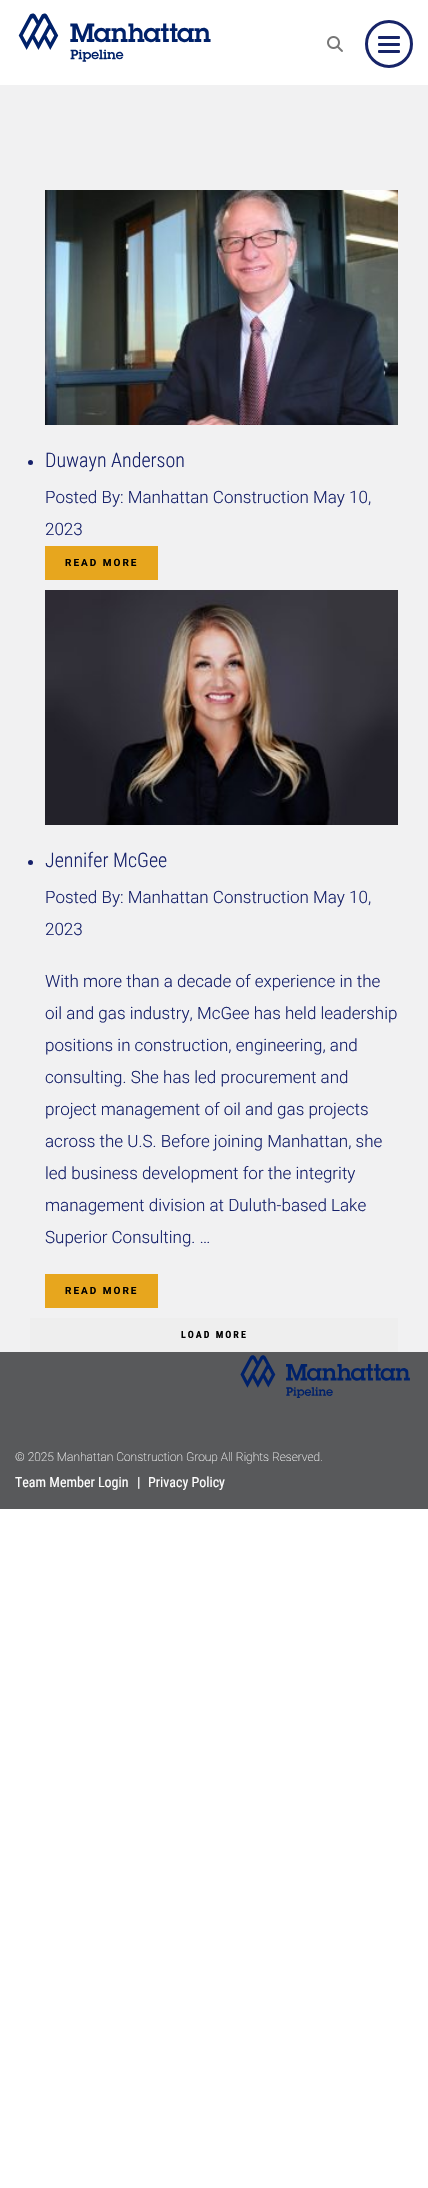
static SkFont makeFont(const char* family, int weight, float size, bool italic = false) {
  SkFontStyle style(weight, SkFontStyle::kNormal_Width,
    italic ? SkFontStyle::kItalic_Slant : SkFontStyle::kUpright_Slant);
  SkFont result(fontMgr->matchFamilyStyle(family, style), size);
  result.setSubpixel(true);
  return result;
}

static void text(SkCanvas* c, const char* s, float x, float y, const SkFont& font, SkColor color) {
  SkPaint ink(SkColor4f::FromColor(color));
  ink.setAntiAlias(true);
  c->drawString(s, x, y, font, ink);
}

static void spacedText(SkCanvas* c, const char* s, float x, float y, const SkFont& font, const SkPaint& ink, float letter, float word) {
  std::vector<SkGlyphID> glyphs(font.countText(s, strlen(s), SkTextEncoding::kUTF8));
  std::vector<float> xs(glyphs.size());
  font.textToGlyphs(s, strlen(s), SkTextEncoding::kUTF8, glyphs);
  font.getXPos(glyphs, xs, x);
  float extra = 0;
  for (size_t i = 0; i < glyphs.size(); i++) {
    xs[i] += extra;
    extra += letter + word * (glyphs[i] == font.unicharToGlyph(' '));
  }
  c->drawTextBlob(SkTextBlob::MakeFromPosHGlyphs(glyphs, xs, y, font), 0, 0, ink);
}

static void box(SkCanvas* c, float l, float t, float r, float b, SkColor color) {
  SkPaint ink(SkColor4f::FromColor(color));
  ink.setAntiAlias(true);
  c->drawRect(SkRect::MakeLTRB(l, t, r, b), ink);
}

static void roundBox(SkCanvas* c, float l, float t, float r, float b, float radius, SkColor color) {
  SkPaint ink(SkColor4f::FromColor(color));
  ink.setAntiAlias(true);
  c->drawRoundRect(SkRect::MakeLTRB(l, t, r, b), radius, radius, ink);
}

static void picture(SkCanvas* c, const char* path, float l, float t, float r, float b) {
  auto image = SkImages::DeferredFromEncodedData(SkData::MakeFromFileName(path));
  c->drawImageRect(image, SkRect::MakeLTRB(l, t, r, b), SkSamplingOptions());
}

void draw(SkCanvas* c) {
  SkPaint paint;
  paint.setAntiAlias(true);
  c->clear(0xffffffff);
  picture(c, "img_01.png", 18, 13, 211, 62);
  picture(c, "img_02.png", 327, 36, 343, 52);
  paint.setStyle(SkPaint::kStroke_Style);
  paint.setStrokeWidth(3);
  paint.setColor(0xff172468);
  c->drawCircle(389, 44, 22.5f, paint);
  roundBox(c, 378, 36, 400, 39, 1, 0xff172468);
  roundBox(c, 378, 43, 400, 46, 1, 0xff172468);
  roundBox(c, 378, 50, 400, 53, 1, 0xff172468);
  box(c, 0, 85, 428, 1352, 0xfff1f1f2);
  picture(c, "img_03.png", 45, 190, 398, 425);
  paint.setStyle(SkPaint::kFill_Style);
  paint.setColor(0xff16216a);
  c->drawCircle(30.5f, 462.5f, 2.5f, paint);
  SkFont face1 = makeFont("Roboto Condensed", 300, 20);
  text(c, "Duwayn Anderson", 45, 467, face1, 0xff16216a);
  SkFont face2 = makeFont("Roboto", 300, 17);
  text(c, "Posted By: Manhattan Construction May 10,", 45, 503, face2, 0xff16216a);
  text(c, "2023", 45, 535, face2, 0xff16216a);
  box(c, 45, 546, 158, 580, 0xffe7a61e);
  SkFont face3 = makeFont("Roboto", 700, 10);
  paint.setColor(0xff000000);
  spacedText(c, "READ MORE", 65, 566, face3, paint, 2, 0);
  picture(c, "img_04.png", 45, 590, 398, 825);
  paint.setColor(0xff16216a);
  c->drawCircle(30.5f, 862.5f, 2.5f, paint);
  text(c, "Jennifer McGee", 45, 867, face1, 0xff16216a);
  text(c, "Posted By: Manhattan Construction May 10,", 45, 903, face2, 0xff16216a);
  text(c, "2023", 45, 935, face2, 0xff16216a);
  text(c, "With more than a decade of experience in the", 45, 987, face2, 0xff16216a);
  text(c, "oil and gas industry, McGee has held leadership", 45, 1019, face2, 0xff16216a);
  text(c, "positions in construction, engineering, and", 45, 1051, face2, 0xff16216a);
  text(c, "consulting. She has led procurement and", 45, 1083, face2, 0xff16216a);
  text(c, "project management of oil and gas projects", 45, 1115, face2, 0xff16216a);
  text(c, "across the U.S. Before joining Manhattan, she", 45, 1147, face2, 0xff16216a);
  text(c, "led business development for the integrity", 45, 1179, face2, 0xff16216a);
  text(c, "management division at Duluth-based Lake", 45, 1211, face2, 0xff16216a);
  text(c, "Superior Consulting. …", 45, 1243, face2, 0xff16216a);
  box(c, 45, 1274, 158, 1308, 0xffe7a61e);
  paint.setColor(0xff000000);
  spacedText(c, "READ MORE", 65, 1294, face3, paint, 2, 0);
  box(c, 30, 1318, 398, 1352, 0xffeeeeee);
  SkFont face4 = makeFont("Roboto Condensed", 700, 10);
  spacedText(c, "LOAD MORE", 181, 1338, face4, paint, 2, 0);
  box(c, 0, 1352, 428, 1509, 0xff58595b);
  picture(c, "img_05.png", 240, 1355, 410, 1398);
  SkFont face5 = makeFont("Roboto", 100, 12);
  text(c, "© 2025 Manhattan Construction Group All Rights Reserved.", 15, 1461, face5, 0xffffffff);
  SkFont face6 = makeFont("Roboto Condensed", 400, 14);
  text(c, "Team Member Login", 15, 1487, face6, 0xffffffff);
  text(c, "|", 137, 1487, face6, 0xffffffff);
  text(c, "Privacy Policy", 148, 1487, face6, 0xffffffff);
}
